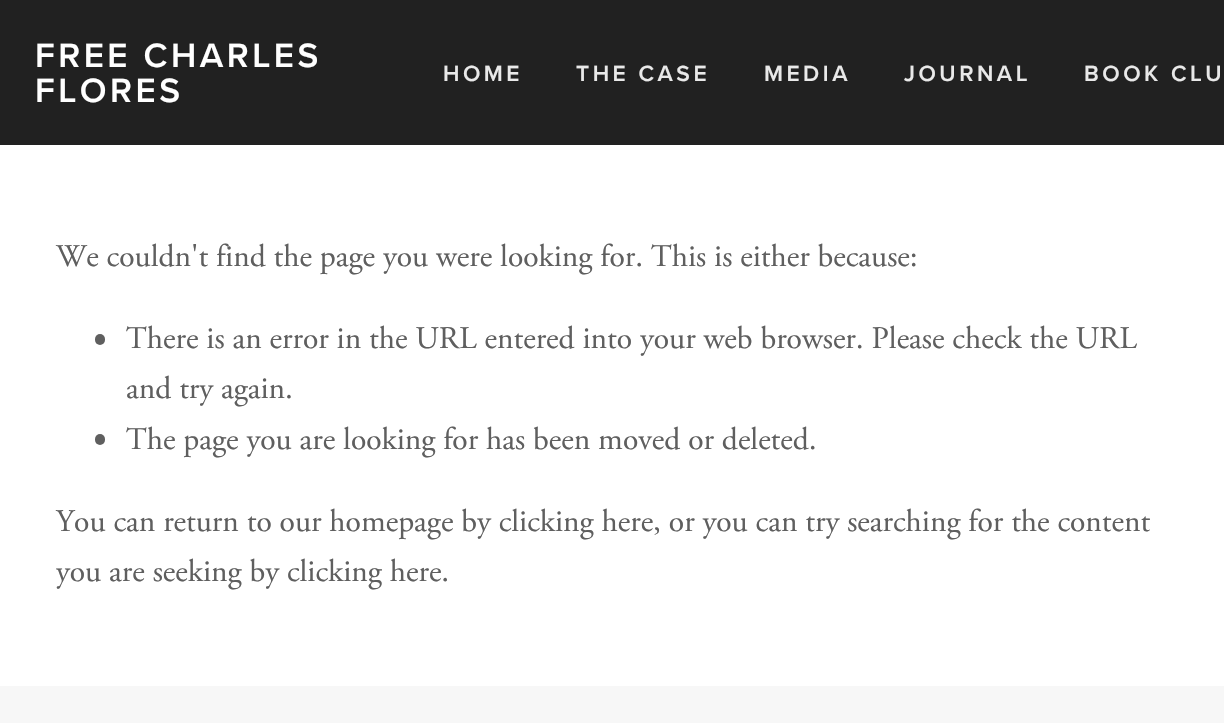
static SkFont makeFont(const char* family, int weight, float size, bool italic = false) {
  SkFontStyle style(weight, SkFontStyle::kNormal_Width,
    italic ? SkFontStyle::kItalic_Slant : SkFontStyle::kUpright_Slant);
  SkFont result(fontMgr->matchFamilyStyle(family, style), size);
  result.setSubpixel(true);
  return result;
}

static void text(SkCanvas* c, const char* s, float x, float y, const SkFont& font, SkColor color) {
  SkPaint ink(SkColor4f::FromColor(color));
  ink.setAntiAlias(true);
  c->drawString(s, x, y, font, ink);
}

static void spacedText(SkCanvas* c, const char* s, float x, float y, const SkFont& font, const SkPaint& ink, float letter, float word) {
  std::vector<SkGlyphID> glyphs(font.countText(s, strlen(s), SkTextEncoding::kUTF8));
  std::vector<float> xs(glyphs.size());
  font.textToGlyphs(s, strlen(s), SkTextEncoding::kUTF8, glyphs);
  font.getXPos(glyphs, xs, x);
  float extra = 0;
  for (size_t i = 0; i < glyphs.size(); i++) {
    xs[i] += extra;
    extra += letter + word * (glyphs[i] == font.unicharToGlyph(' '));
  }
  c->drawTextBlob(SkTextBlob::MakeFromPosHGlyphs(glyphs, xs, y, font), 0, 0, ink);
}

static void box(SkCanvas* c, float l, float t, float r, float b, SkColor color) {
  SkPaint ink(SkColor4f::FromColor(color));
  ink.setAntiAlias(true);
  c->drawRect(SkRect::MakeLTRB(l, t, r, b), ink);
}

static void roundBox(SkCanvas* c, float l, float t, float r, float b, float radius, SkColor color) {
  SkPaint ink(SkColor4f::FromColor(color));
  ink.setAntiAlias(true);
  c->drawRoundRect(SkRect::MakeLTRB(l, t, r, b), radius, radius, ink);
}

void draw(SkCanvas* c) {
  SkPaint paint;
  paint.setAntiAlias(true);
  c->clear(0xffffffff);
  box(c, 0, 0, 1224, 145, 0xff212121);
  SkFont face1 = makeFont("Proxima Nova", 600, 35);
  paint.setColor(0xffffffff);
  spacedText(c, "FREE CHARLES", 35, 67, face1, paint, 3.5f, 0);
  spacedText(c, "FLORES", 35, 102, face1, paint, 3.5f, 0);
  SkFont face2 = makeFont("Proxima Nova", 600, 22.75f);
  paint.setColor(0xffe9e9e9);
  spacedText(c, "HOME", 443, 81, face2, paint, 3.5f, 0);
  spacedText(c, "THE CASE", 576, 81, face2, paint, 3.5f, 0);
  spacedText(c, "MEDIA", 764, 81, face2, paint, 3.5f, 0);
  spacedText(c, "JOURNAL", 904, 81, face2, paint, 3.5f, 0);
  spacedText(c, "BOOK CLU", 1084, 81, face2, paint, 3.5f, 0);
  SkFont face3 = makeFont("Adobe Garamond", 400, 31.5f);
  text(c, "We couldn't find the page you were looking for. This is either because:", 56, 266, face3, 0xff5f5f5f);
  roundBox(c, 95, 334, 105, 345, 5, 0xff5f5f5f);
  text(c, "There is an error in the URL entered into your web browser. Please check the URL", 126, 348, face3, 0xff5f5f5f);
  text(c, "and try again.", 126, 398, face3, 0xff5f5f5f);
  roundBox(c, 95, 434, 105, 445, 5, 0xff5f5f5f);
  text(c, "The page you are looking for has been moved or deleted.", 126, 449, face3, 0xff5f5f5f);
  text(c, "You can return to our homepage by clicking here, or you can try searching for the content", 56, 531, face3, 0xff5f5f5f);
  text(c, "you are seeking by clicking here.", 56, 581, face3, 0xff5f5f5f);
  box(c, 0, 686, 1224, 723, 0xfff7f7f7);
}
